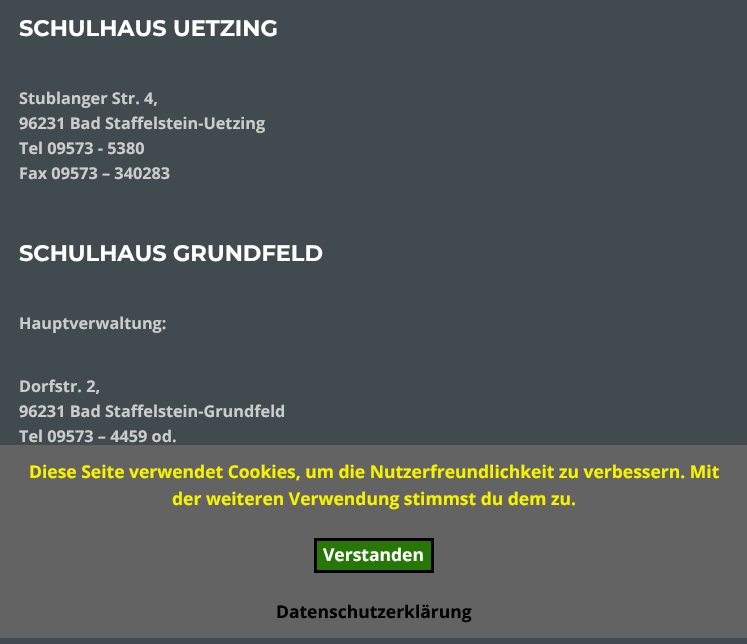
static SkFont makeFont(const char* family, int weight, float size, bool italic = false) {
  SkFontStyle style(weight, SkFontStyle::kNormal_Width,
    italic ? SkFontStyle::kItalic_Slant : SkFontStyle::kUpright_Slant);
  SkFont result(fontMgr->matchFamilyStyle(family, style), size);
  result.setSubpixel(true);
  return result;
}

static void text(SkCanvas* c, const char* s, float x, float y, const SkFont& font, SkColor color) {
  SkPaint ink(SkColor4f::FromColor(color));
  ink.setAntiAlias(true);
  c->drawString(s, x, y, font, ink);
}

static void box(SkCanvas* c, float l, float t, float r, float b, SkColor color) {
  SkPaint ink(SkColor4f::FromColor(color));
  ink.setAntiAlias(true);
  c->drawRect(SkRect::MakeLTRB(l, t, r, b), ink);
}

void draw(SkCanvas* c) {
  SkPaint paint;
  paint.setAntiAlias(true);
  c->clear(0xff414b4f);
  SkFont face1 = makeFont("Montserrat", 700, 22.5f);
  text(c, "SCHULHAUS UETZING", 19, 36, face1, 0xffffffff);
  SkFont face2 = makeFont("Open Sans", 700, 16.25f);
  text(c, "Stublanger Str. 4,", 19, 104, face2, 0xffcccccc);
  text(c, "96231 Bad Staffelstein-Uetzing", 19, 129, face2, 0xffcccccc);
  text(c, "Tel 09573 - 5380", 19, 154, face2, 0xffcccccc);
  text(c, "Fax 09573 – 340283", 19, 179, face2, 0xffcccccc);
  text(c, "SCHULHAUS GRUNDFELD", 19, 261, face1, 0xffffffff);
  text(c, "Hauptverwaltung:", 19, 329, face2, 0xffcccccc);
  text(c, "Dorfstr. 2,", 19, 392, face2, 0xffcccccc);
  text(c, "96231 Bad Staffelstein-Grundfeld", 19, 417, face2, 0xffcccccc);
  text(c, "Tel 09573 – 4459 od.", 19, 442, face2, 0xffcccccc);
  box(c, 0, 445, 747, 638, 0xff636363);
  SkFont face3 = makeFont("Open Sans", 700, 17.5f);
  text(c, "Diese Seite verwendet Cookies, um die Nutzerfreundlichkeit zu verbessern. Mit", 29, 478, face3, 0xfff7f300);
  text(c, "der weiteren Verwendung stimmst du dem zu.", 172, 505, face3, 0xfff7f300);
  paint.setColor(0xff277707);
  c->drawRect(SkRect::MakeLTRB(315.5f, 539.5f, 432.5f, 571.5f), paint);
  paint.setStyle(SkPaint::kStroke_Style);
  paint.setStrokeWidth(3);
  paint.setColor(0xff000000);
  c->drawRect(SkRect::MakeLTRB(315.5f, 539.5f, 432.5f, 571.5f), paint);
  text(c, "Verstanden", 323, 561, face3, 0xffffffff);
  text(c, "Datenschutzerklärung", 276, 618, face3, 0xff000000);
}
